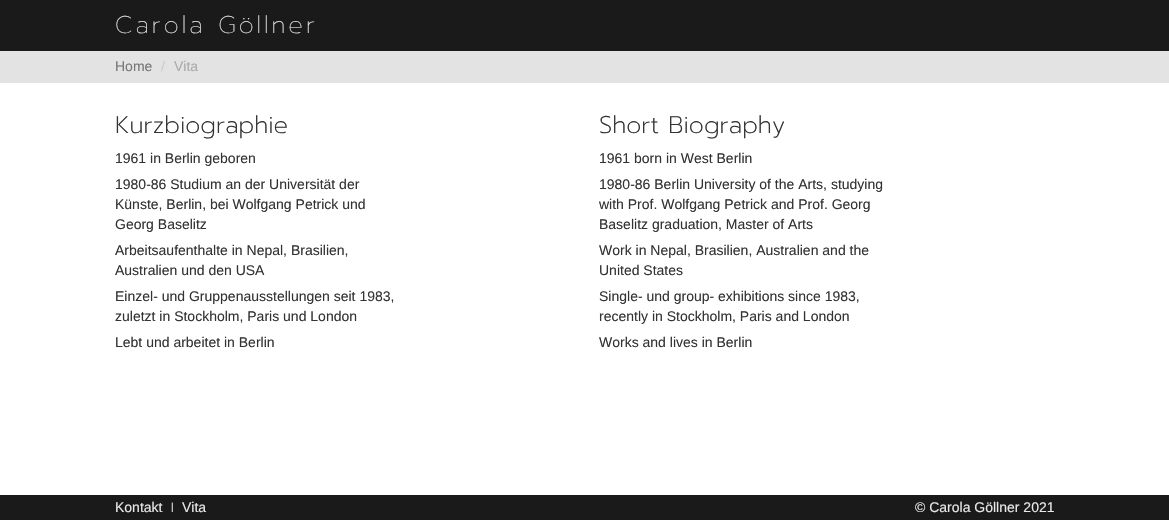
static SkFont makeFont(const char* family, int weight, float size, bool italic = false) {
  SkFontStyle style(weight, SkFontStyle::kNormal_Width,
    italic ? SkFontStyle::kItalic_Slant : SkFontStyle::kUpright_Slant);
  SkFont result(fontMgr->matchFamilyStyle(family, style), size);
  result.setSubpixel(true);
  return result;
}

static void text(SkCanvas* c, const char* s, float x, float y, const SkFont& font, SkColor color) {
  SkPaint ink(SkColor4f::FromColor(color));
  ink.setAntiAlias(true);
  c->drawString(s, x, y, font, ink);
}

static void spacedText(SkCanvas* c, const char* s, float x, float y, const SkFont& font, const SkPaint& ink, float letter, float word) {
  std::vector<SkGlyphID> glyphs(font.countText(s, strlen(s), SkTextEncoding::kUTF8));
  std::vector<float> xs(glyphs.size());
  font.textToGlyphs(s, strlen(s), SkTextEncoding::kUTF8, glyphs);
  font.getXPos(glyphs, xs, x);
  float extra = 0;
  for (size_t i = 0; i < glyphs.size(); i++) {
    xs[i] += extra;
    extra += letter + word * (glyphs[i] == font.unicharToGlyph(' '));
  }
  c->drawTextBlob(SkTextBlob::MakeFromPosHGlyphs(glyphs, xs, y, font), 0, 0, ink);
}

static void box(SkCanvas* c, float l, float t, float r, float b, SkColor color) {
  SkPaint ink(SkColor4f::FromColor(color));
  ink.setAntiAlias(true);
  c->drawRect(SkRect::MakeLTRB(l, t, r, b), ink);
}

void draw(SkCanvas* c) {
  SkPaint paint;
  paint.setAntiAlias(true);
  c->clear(0xffffffff);
  box(c, 0, 0, 1169, 51, 0xff1a1a1a);
  SkFont face1 = makeFont("Prompt", 100, 24);
  paint.setColor(0xffe8e8e8);
  spacedText(c, "Carola Göllner", 115, 33, face1, paint, 3, 0);
  box(c, 0, 51, 1169, 83, 0xffe3e3e3);
  SkFont face2 = makeFont("Liberation Sans", 400, 14);
  text(c, "Home", 115, 71, face2, 0xff777777);
  text(c, "/", 161, 71, face2, 0xffcccccc);
  text(c, "Vita", 174, 71, face2, 0xffaaaaaa);
  SkFont face3 = makeFont("Prompt", 200, 24);
  text(c, "Kurzbiographie", 115, 133, face3, 0xff333333);
  text(c, "1961 in Berlin geboren", 115, 163, face2, 0xff333333);
  text(c, "1980-86 Studium an der Universität der", 115, 189, face2, 0xff333333);
  text(c, "Künste, Berlin, bei Wolfgang Petrick und", 115, 209, face2, 0xff333333);
  text(c, "Georg Baselitz", 115, 229, face2, 0xff333333);
  text(c, "Arbeitsaufenthalte in Nepal, Brasilien,", 115, 255, face2, 0xff333333);
  text(c, "Australien und den USA", 115, 275, face2, 0xff333333);
  text(c, "Einzel- und Gruppenausstellungen seit 1983,", 115, 301, face2, 0xff333333);
  text(c, "zuletzt in Stockholm, Paris und London", 115, 321, face2, 0xff333333);
  text(c, "Lebt und arbeitet in Berlin", 115, 347, face2, 0xff333333);
  text(c, "Short Biography", 599, 133, face3, 0xff333333);
  text(c, "1961 born in West Berlin", 599, 163, face2, 0xff333333);
  text(c, "1980-86 Berlin University of the Arts, studying", 599, 189, face2, 0xff333333);
  text(c, "with Prof. Wolfgang Petrick and Prof. Georg", 599, 209, face2, 0xff333333);
  text(c, "Baselitz graduation, Master of Arts", 599, 229, face2, 0xff333333);
  text(c, "Work in Nepal, Brasilien, Australien and the", 599, 255, face2, 0xff333333);
  text(c, "United States", 599, 275, face2, 0xff333333);
  text(c, "Single- und group- exhibitions since 1983,", 599, 301, face2, 0xff333333);
  text(c, "recently in Stockholm, Paris and London", 599, 321, face2, 0xff333333);
  text(c, "Works and lives in Berlin", 599, 347, face2, 0xff333333);
  box(c, 0, 495, 1169, 520, 0xff1a1a1a);
  text(c, "Kontakt", 115, 512, face2, 0xffe8e8e8);
  SkFont face4 = makeFont("Liberation Sans", 400, 10);
  text(c, "|", 171, 510, face4, 0xffe8e8e8);
  text(c, "Vita", 182, 512, face2, 0xffe8e8e8);
  text(c, "© Carola Göllner 2021", 915, 512, face2, 0xffe8e8e8);
}
